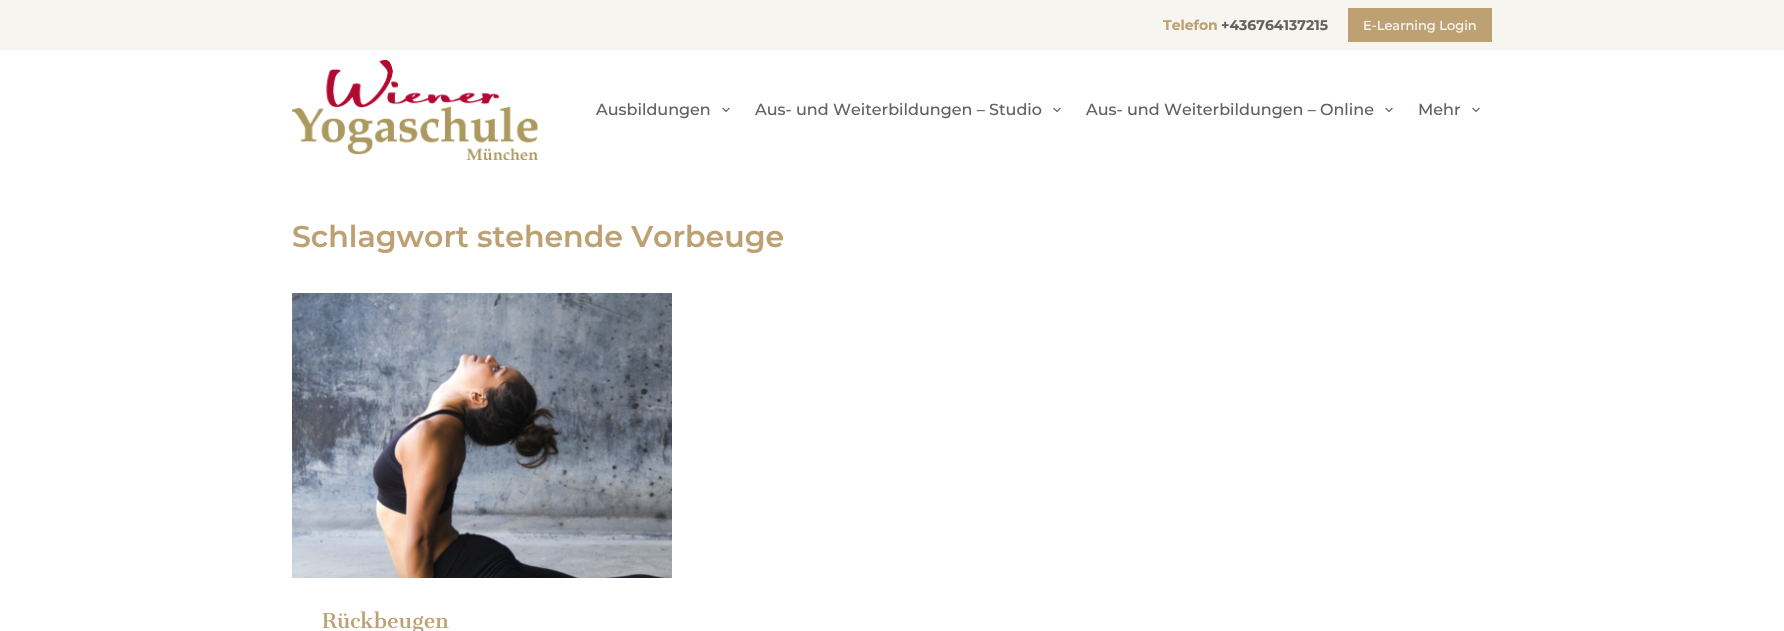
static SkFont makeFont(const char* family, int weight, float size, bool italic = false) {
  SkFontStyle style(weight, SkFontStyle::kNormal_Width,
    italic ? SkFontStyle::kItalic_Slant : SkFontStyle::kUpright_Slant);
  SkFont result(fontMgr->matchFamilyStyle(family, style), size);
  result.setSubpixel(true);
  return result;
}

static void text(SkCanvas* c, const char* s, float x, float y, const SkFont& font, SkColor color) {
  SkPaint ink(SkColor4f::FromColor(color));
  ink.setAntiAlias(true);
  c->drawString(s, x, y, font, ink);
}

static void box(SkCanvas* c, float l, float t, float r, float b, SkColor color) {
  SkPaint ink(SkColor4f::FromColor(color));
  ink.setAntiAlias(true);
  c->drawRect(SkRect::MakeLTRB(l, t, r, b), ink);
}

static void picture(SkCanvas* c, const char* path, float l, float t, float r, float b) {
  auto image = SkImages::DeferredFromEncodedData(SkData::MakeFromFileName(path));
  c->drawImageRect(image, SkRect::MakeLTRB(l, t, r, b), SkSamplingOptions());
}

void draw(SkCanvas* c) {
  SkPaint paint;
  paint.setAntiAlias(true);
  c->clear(0xffffffff);
  box(c, 0, 0, 1784, 50, 0xfff7f5ef);
  SkFont face1 = makeFont("Montserrat", 700, 14);
  text(c, "Telefon", 1163, 30, face1, 0xffbda173);
  text(c, "+436764137215", 1221, 30, face1, 0xff676060);
  box(c, 1348, 8, 1492, 42, 0xffbda173);
  SkFont face2 = makeFont("Montserrat", 500, 13);
  text(c, "E-Learning Login", 1363, 30, face2, 0xfff7f5ef);
  picture(c, "img_01.png", 292, 60, 538, 160);
  SkFont face3 = makeFont("Montserrat", 500, 16);
  text(c, "Ausbildungen", 596, 115, face3, 0xff676060);
  picture(c, "img_02.png", 722, 107, 730, 113);
  text(c, "Aus- und Weiterbildungen – Studio", 755, 115, face3, 0xff676060);
  picture(c, "img_02.png", 1053, 107, 1061, 113);
  text(c, "Aus- und Weiterbildungen – Online", 1086, 115, face3, 0xff676060);
  picture(c, "img_02.png", 1385, 107, 1393, 113);
  text(c, "Mehr", 1418, 115, face3, 0xff676060);
  picture(c, "img_02.png", 1472, 107, 1480, 113);
  SkFont face4 = makeFont("Montserrat", 600, 30);
  text(c, "Schlagwort stehende Vorbeuge", 292, 247, face4, 0xffbda173);
  picture(c, "img_03.png", 292, 293, 672, 578);
  SkFont face5 = makeFont("Cantata One", 400, 20);
  text(c, "Rückbeugen", 322, 628, face5, 0xffbda173);
}
